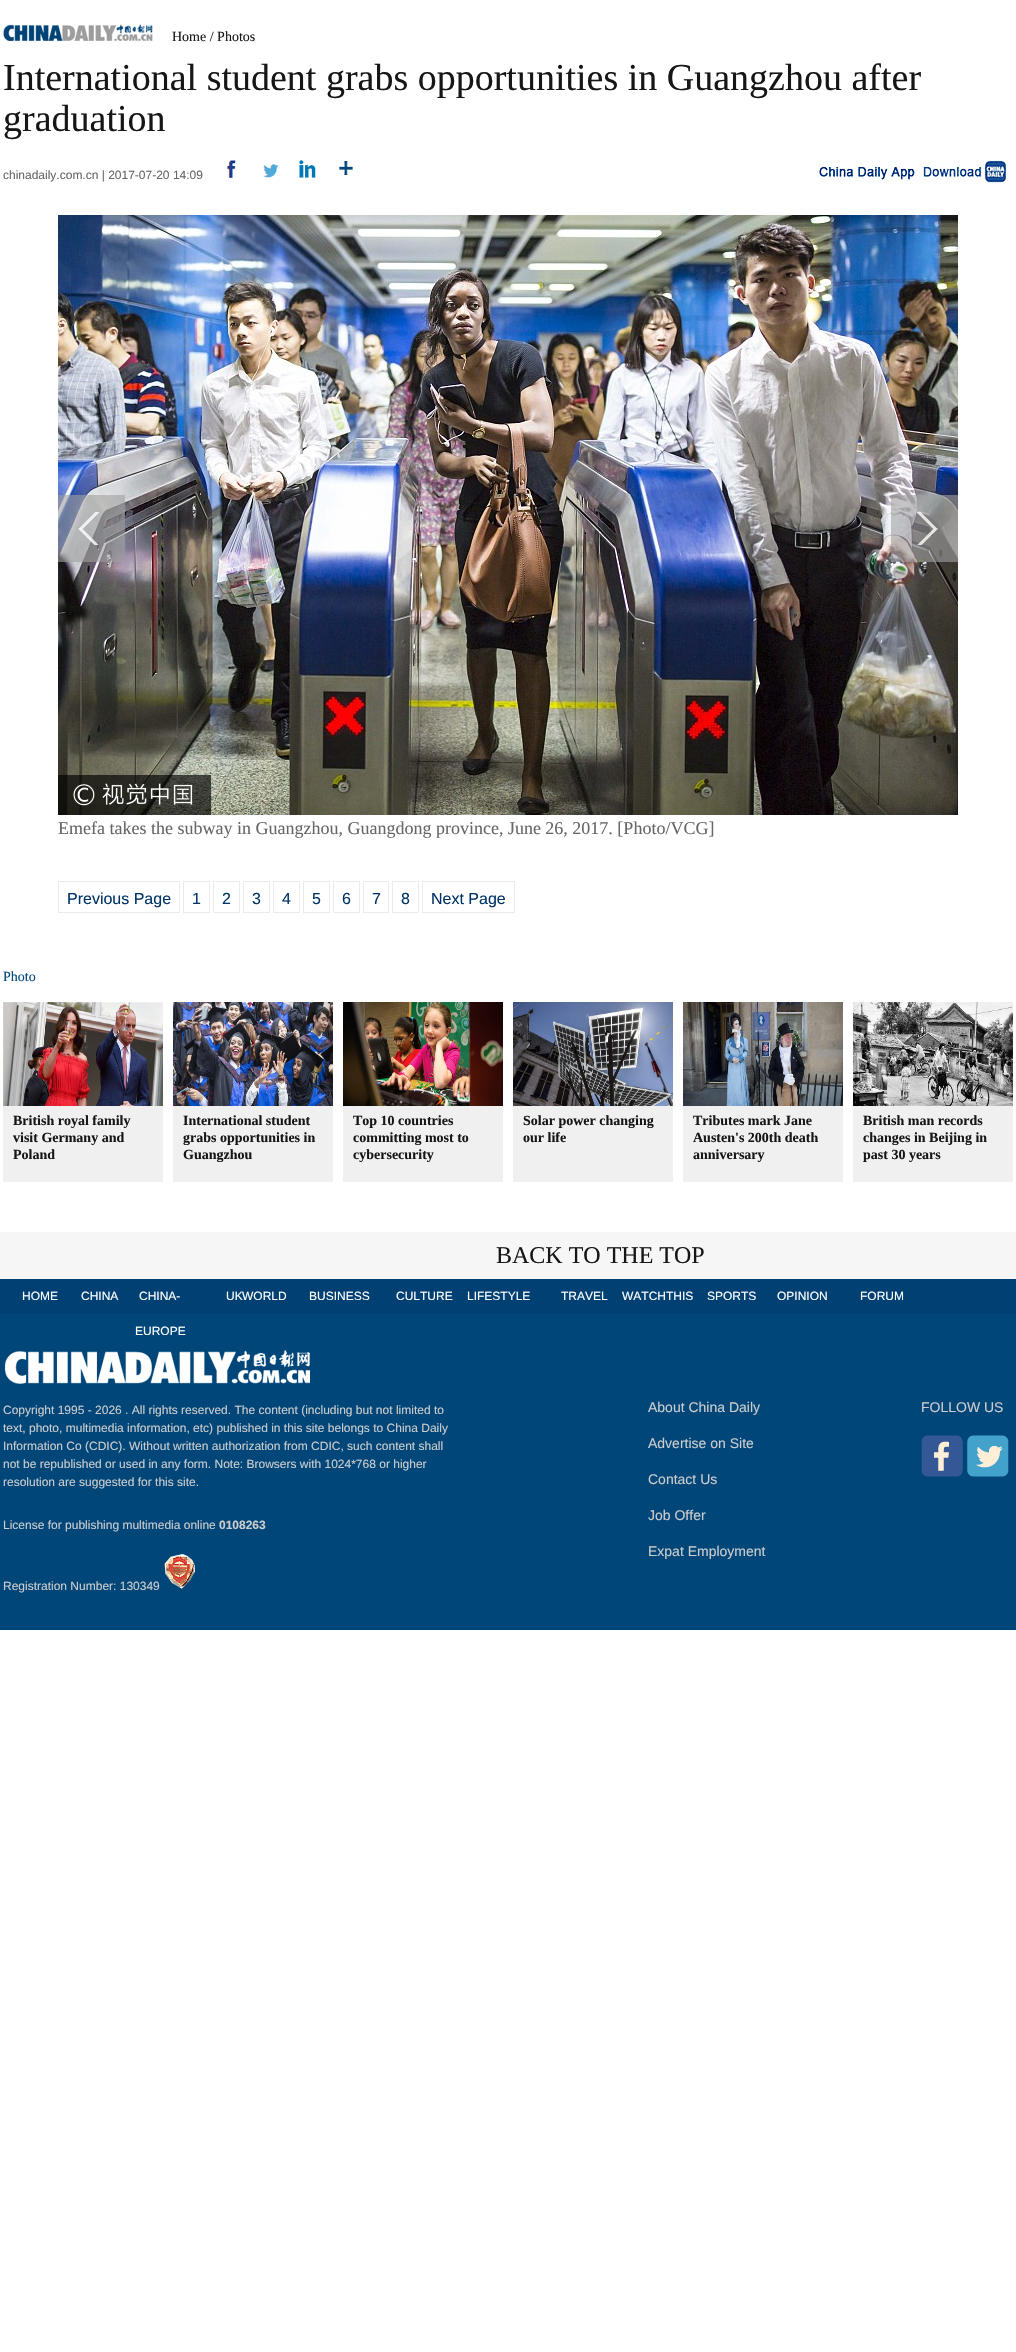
static SkFont makeFont(const char* family, int weight, float size, bool italic = false) {
  SkFontStyle style(weight, SkFontStyle::kNormal_Width,
    italic ? SkFontStyle::kItalic_Slant : SkFontStyle::kUpright_Slant);
  SkFont result(fontMgr->matchFamilyStyle(family, style), size);
  result.setSubpixel(true);
  return result;
}

static void text(SkCanvas* c, const char* s, float x, float y, const SkFont& font, SkColor color) {
  SkPaint ink(SkColor4f::FromColor(color));
  ink.setAntiAlias(true);
  c->drawString(s, x, y, font, ink);
}

static void box(SkCanvas* c, float l, float t, float r, float b, SkColor color) {
  SkPaint ink(SkColor4f::FromColor(color));
  ink.setAntiAlias(true);
  c->drawRect(SkRect::MakeLTRB(l, t, r, b), ink);
}

static void picture(SkCanvas* c, const char* path, float l, float t, float r, float b) {
  auto image = SkImages::DeferredFromEncodedData(SkData::MakeFromFileName(path));
  c->drawImageRect(image, SkRect::MakeLTRB(l, t, r, b), SkSamplingOptions());
}

void draw(SkCanvas* c) {
  SkPaint paint;
  paint.setAntiAlias(true);
  c->clear(0xffffffff);
  picture(c, "img_01.png", 3, 24, 153, 41);
  SkFont face1 = makeFont("Liberation Serif", 400, 14);
  text(c, "Home / Photos", 172, 41, face1, 0xff161616);
  SkFont face2 = makeFont("Liberation Serif", 400, 38);
  text(c, "International student grabs opportunities in Guangzhou after", 3, 90, face2, 0xff161616);
  text(c, "graduation", 3, 131, face2, 0xff161616);
  SkFont face3 = makeFont("Liberation Sans", 400, 12);
  text(c, "chinadaily.com.cn | 2017-07-20 14:09", 3, 179, face3, 0xff666666);
  picture(c, "img_02.png", 226, 160, 236, 178);
  picture(c, "img_03.png", 263, 164, 279, 178);
  picture(c, "img_04.png", 299, 160, 316, 178);
  picture(c, "img_05.png", 339, 161, 353, 175);
  picture(c, "img_06.png", 819, 160, 1010, 183);
  picture(c, "img_09.png", 58, 215, 958, 815);
  picture(c, "img_07.png", 58, 495, 125, 562);
  picture(c, "img_08.png", 891, 495, 958, 562);
  SkFont face4 = makeFont("Liberation Serif", 400, 18);
  text(c, "Emefa takes the subway in Guangzhou, Guangdong province, June 26, 2017. [Photo/VCG]", 58, 834, face4, 0xff666666);
  paint.setStyle(SkPaint::kStroke_Style);
  paint.setStrokeWidth(1);
  paint.setColor(0xffebebeb);
  c->drawRect(SkRect::MakeLTRB(58.5f, 881.5f, 179.5f, 912.5f), paint);
  SkFont face5 = makeFont("Liberation Sans", 400, 16);
  text(c, "Previous Page", 67, 904, face5, 0xff003366);
  c->drawRect(SkRect::MakeLTRB(183.5f, 881.5f, 209.5f, 912.5f), paint);
  text(c, "1", 192, 904, face5, 0xff003366);
  c->drawRect(SkRect::MakeLTRB(213.5f, 881.5f, 239.5f, 912.5f), paint);
  text(c, "2", 222, 904, face5, 0xff003366);
  c->drawRect(SkRect::MakeLTRB(243.5f, 881.5f, 269.5f, 912.5f), paint);
  text(c, "3", 252, 904, face5, 0xff003366);
  c->drawRect(SkRect::MakeLTRB(273.5f, 881.5f, 299.5f, 912.5f), paint);
  text(c, "4", 282, 904, face5, 0xff003366);
  c->drawRect(SkRect::MakeLTRB(303.5f, 881.5f, 329.5f, 912.5f), paint);
  text(c, "5", 312, 904, face5, 0xff003366);
  c->drawRect(SkRect::MakeLTRB(333.5f, 881.5f, 359.5f, 912.5f), paint);
  text(c, "6", 342, 904, face5, 0xff003366);
  c->drawRect(SkRect::MakeLTRB(363.5f, 881.5f, 388.5f, 912.5f), paint);
  text(c, "7", 372, 904, face5, 0xff003366);
  c->drawRect(SkRect::MakeLTRB(392.5f, 881.5f, 418.5f, 912.5f), paint);
  text(c, "8", 401, 904, face5, 0xff003366);
  c->drawRect(SkRect::MakeLTRB(422.5f, 881.5f, 514.5f, 912.5f), paint);
  text(c, "Next Page", 431, 904, face5, 0xff003366);
  text(c, "Photo", 3, 981, face1, 0xff004679);
  box(c, 3, 1106, 163, 1182, 0xfff0f0f0);
  picture(c, "img_10.png", 3, 1002, 163, 1106);
  SkFont face6 = makeFont("Liberation Serif", 700, 14);
  text(c, "British royal family", 13, 1125, face6, 0xff161616);
  text(c, "visit Germany and", 13, 1142, face6, 0xff161616);
  text(c, "Poland", 13, 1159, face6, 0xff161616);
  box(c, 173, 1106, 333, 1182, 0xfff0f0f0);
  picture(c, "img_11.png", 173, 1002, 333, 1106);
  text(c, "International student", 183, 1125, face6, 0xff161616);
  text(c, "grabs opportunities in", 183, 1142, face6, 0xff161616);
  text(c, "Guangzhou", 183, 1159, face6, 0xff161616);
  box(c, 343, 1106, 503, 1182, 0xfff0f0f0);
  picture(c, "img_12.png", 343, 1002, 503, 1106);
  text(c, "Top 10 countries", 353, 1125, face6, 0xff161616);
  text(c, "committing most to", 353, 1142, face6, 0xff161616);
  text(c, "cybersecurity", 353, 1159, face6, 0xff161616);
  box(c, 513, 1106, 673, 1182, 0xfff0f0f0);
  picture(c, "img_13.png", 513, 1002, 673, 1106);
  text(c, "Solar power changing", 523, 1125, face6, 0xff161616);
  text(c, "our life", 523, 1142, face6, 0xff161616);
  box(c, 683, 1106, 843, 1182, 0xfff0f0f0);
  picture(c, "img_14.png", 683, 1002, 843, 1106);
  text(c, "Tributes mark Jane", 693, 1125, face6, 0xff161616);
  text(c, "Austen's 200th death", 693, 1142, face6, 0xff161616);
  text(c, "anniversary", 693, 1159, face6, 0xff161616);
  box(c, 853, 1106, 1013, 1182, 0xfff0f0f0);
  picture(c, "img_15.png", 853, 1002, 1013, 1106);
  text(c, "British man records", 863, 1125, face6, 0xff161616);
  text(c, "changes in Beijing in", 863, 1142, face6, 0xff161616);
  text(c, "past 30 years", 863, 1159, face6, 0xff161616);
  box(c, 0, 1232, 1016, 1279, 0xfff6f6f6);
  SkFont face7 = makeFont("Liberation Serif", 400, 24);
  text(c, "BACK TO THE TOP", 496, 1263, face7, 0xff161616);
  box(c, 0, 1279, 1016, 1314, 0xff014073);
  text(c, "HOME", 22, 1300, face3, 0xffffffff);
  text(c, "CHINA", 81, 1300, face3, 0xffffffff);
  text(c, "CHINA-", 139, 1300, face3, 0xffffffff);
  box(c, 0, 1314, 1016, 1630, 0xff004679);
  text(c, "EUROPE", 135, 1335, face3, 0xffffffff);
  text(c, "UK", 226, 1300, face3, 0xffffffff);
  text(c, "WORLD", 242, 1300, face3, 0xffffffff);
  text(c, "BUSINESS", 309, 1300, face3, 0xffffffff);
  text(c, "CULTURE", 396, 1300, face3, 0xffffffff);
  text(c, "LIFESTYLE", 467, 1300, face3, 0xffffffff);
  text(c, "TRAVEL", 561, 1300, face3, 0xffffffff);
  text(c, "WATCHTHIS", 622, 1300, face3, 0xffffffff);
  text(c, "SPORTS", 707, 1300, face3, 0xffffffff);
  text(c, "OPINION", 777, 1300, face3, 0xffffffff);
  text(c, "FORUM", 860, 1300, face3, 0xffffffff);
  picture(c, "img_16.png", 5, 1350, 310, 1384);
  text(c, "Copyright 1995 - 2026 . All rights reserved. The content (including but not limited to", 3, 1414, face3, 0xffcccccc);
  text(c, "text, photo, multimedia information, etc) published in this site belongs to China Daily", 3, 1432, face3, 0xffcccccc);
  text(c, "Information Co (CDIC). Without written authorization from CDIC, such content shall", 3, 1450, face3, 0xffcccccc);
  text(c, "not be republished or used in any form. Note: Browsers with 1024*768 or higher", 3, 1468, face3, 0xffcccccc);
  text(c, "resolution are suggested for this site.", 3, 1486, face3, 0xffcccccc);
  text(c, "License for publishing multimedia online", 3, 1529, face3, 0xffcccccc);
  SkFont face8 = makeFont("Liberation Sans", 700, 12);
  text(c, "0108263", 219, 1529, face8, 0xffcccccc);
  text(c, "Registration Number: 130349", 3, 1590, face3, 0xffcccccc);
  picture(c, "img_17.png", 164, 1553, 195, 1590);
  SkFont face9 = makeFont("Liberation Sans", 400, 14);
  text(c, "About China Daily", 648, 1412, face9, 0xffcccccc);
  text(c, "Advertise on Site", 648, 1448, face9, 0xffcccccc);
  text(c, "Contact Us", 648, 1484, face9, 0xffcccccc);
  text(c, "Job Offer", 648, 1520, face9, 0xffcccccc);
  text(c, "Expat Employment", 648, 1556, face9, 0xffcccccc);
  text(c, "FOLLOW US", 921, 1412, face9, 0xffcccccc);
  picture(c, "img_18.png", 921, 1435, 963, 1477);
  picture(c, "img_19.png", 967, 1435, 1009, 1477);
}
